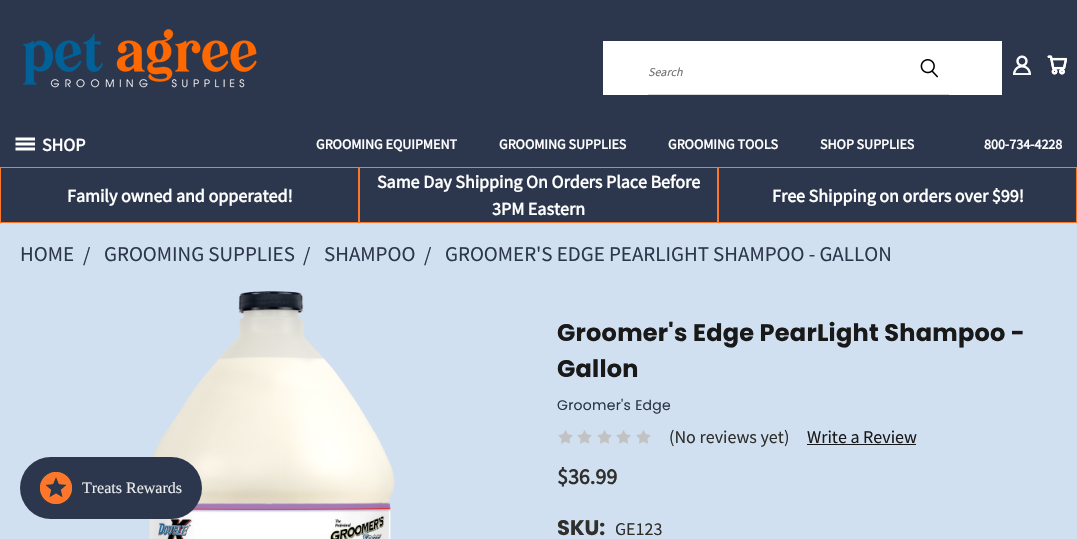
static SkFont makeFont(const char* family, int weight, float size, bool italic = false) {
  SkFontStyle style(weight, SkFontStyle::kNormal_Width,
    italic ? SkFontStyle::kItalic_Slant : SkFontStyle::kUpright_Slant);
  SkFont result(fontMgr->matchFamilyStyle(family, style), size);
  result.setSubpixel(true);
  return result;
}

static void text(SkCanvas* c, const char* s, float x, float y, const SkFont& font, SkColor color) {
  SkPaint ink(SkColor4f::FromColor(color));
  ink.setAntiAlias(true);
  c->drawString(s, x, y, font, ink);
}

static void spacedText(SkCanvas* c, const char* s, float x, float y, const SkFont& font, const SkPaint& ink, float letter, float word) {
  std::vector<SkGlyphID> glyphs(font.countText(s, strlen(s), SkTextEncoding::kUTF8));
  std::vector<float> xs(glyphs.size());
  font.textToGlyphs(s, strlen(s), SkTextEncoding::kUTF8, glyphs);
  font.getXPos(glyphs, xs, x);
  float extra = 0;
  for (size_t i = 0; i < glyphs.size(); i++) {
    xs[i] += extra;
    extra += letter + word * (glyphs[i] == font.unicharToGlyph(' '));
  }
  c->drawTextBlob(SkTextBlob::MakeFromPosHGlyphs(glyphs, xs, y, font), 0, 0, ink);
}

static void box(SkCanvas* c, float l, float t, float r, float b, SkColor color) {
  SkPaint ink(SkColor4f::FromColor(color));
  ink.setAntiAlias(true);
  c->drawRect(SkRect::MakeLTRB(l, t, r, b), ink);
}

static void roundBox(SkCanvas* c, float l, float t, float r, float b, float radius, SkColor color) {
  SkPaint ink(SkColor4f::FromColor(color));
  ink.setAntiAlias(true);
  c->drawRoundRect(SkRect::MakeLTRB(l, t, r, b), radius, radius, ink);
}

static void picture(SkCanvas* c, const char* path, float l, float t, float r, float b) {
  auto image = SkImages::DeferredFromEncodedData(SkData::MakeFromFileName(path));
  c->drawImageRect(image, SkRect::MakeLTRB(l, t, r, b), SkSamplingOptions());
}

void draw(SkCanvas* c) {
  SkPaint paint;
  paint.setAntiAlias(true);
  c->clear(0xffd1e0f1);
  box(c, 0, 0, 1077, 167, 0xff2c374d);
  picture(c, "img_01.png", 22, 29, 257, 88);
  box(c, 603, 41, 1002, 95, 0xffffffff);
  box(c, 648, 94, 949, 95, 0xffd7d7d7);
  SkFont face1 = makeFont("Source Sans Pro", 400, 12, true);
  text(c, "Search", 648, 76, face1, 0xff70706e);
  picture(c, "img_02.png", 920, 59, 938, 78);
  picture(c, "img_03.png", 1013, 55, 1031, 75);
  picture(c, "img_04.png", 1047, 55, 1067, 75);
  picture(c, "img_05.png", 15, 137, 35, 151);
  SkFont face2 = makeFont("Source Sans Pro", 700, 18);
  text(c, "SHOP", 42, 151, face2, 0xffffffff);
  SkFont face3 = makeFont("Source Sans Pro", 700, 14);
  text(c, "GROOMING EQUIPMENT", 316, 149, face3, 0xffffffff);
  text(c, "GROOMING SUPPLIES", 499, 149, face3, 0xffffffff);
  text(c, "GROOMING TOOLS", 668, 149, face3, 0xffffffff);
  text(c, "SHOP SUPPLIES", 820, 149, face3, 0xffffffff);
  text(c, "800-734-4228", 984, 149, face3, 0xffffffff);
  paint.setColor(0xff2c374d);
  c->drawRect(SkRect::MakeLTRB(0.5f, 167.5f, 358.5f, 222.5f), paint);
  paint.setStyle(SkPaint::kStroke_Style);
  paint.setStrokeWidth(1);
  paint.setColor(0xffff762b);
  c->drawRect(SkRect::MakeLTRB(0.5f, 167.5f, 358.5f, 222.5f), paint);
  text(c, "Family owned and opperated!", 67, 202, face2, 0xffffffff);
  paint.setStyle(SkPaint::kFill_Style);
  paint.setColor(0xff2c374d);
  c->drawRect(SkRect::MakeLTRB(359.5f, 167.5f, 717.5f, 222.5f), paint);
  paint.setStyle(SkPaint::kStroke_Style);
  paint.setColor(0xffff762b);
  c->drawRect(SkRect::MakeLTRB(359.5f, 167.5f, 717.5f, 222.5f), paint);
  text(c, "Same Day Shipping On Orders Place Before", 377, 188, face2, 0xffffffff);
  text(c, "3PM Eastern", 492, 215, face2, 0xffffffff);
  paint.setStyle(SkPaint::kFill_Style);
  paint.setColor(0xff2c374d);
  c->drawRect(SkRect::MakeLTRB(718.5f, 167.5f, 1076.5f, 222.5f), paint);
  paint.setStyle(SkPaint::kStroke_Style);
  paint.setColor(0xffff762b);
  c->drawRect(SkRect::MakeLTRB(718.5f, 167.5f, 1076.5f, 222.5f), paint);
  text(c, "Free Shipping on orders over $99!", 772, 202, face2, 0xffffffff);
  SkFont face4 = makeFont("Source Sans Pro", 400, 21);
  text(c, "HOME", 20, 261, face4, 0xff2c374d);
  text(c, "/", 83, 262, face4, 0xff2c374d);
  text(c, "GROOMING SUPPLIES", 104, 261, face4, 0xff2c374d);
  text(c, "/", 303, 262, face4, 0xff2c374d);
  text(c, "SHAMPOO", 324, 261, face4, 0xff2c374d);
  text(c, "/", 424, 262, face4, 0xff2c374d);
  text(c, "GROOMER'S EDGE PEARLIGHT SHAMPOO - GALLON", 445, 261, face4, 0xff2c374d);
  picture(c, "img_06.png", 149, 291, 395, 539);
  SkFont face5 = makeFont("Poppins", 700, 24);
  paint.setStyle(SkPaint::kFill_Style);
  paint.setColor(0xff191919);
  spacedText(c, "Groomer's Edge PearLight Shampoo -", 557, 341, face5, paint, 0.25f, 0);
  spacedText(c, "Gallon", 557, 377, face5, paint, 0.25f, 0);
  SkFont face6 = makeFont("Poppins", 400, 14);
  paint.setColor(0xff2c374d);
  spacedText(c, "Groomer's Edge", 557, 410, face6, paint, 0.25f, 0);
  picture(c, "img_07.png", 558, 430, 573, 444);
  picture(c, "img_07.png", 577, 430, 592, 444);
  picture(c, "img_07.png", 597, 430, 612, 444);
  picture(c, "img_07.png", 616, 430, 631, 444);
  picture(c, "img_07.png", 636, 430, 651, 444);
  SkFont face7 = makeFont("Source Sans Pro", 400, 18);
  text(c, "(No reviews yet)", 669, 443, face7, 0xff2f2f2b);
  text(c, "Write a Review", 807, 443, face7, 0xff191919);
  box(c, 807, 444, 916, 445, 0xff191919);
  SkFont face8 = makeFont("Source Sans Pro", 700, 22);
  text(c, "$36.99", 557, 484, face8, 0xff2f2f2b);
  SkFont face9 = makeFont("Poppins", 700, 21);
  text(c, "SKU:", 557, 535, face9, 0xff2f2f2b);
  text(c, "GE123", 615, 535, face7, 0xff2f2f2b);
  roundBox(c, 20, 457, 202, 519, 31, 0xff2c374d);
  picture(c, "img_08.png", 40, 472, 72, 504);
  SkFont face10 = makeFont("Liberation Serif", 400, 16);
  text(c, "Treats Rewards", 82, 493, face10, 0xffeaebed);
}
